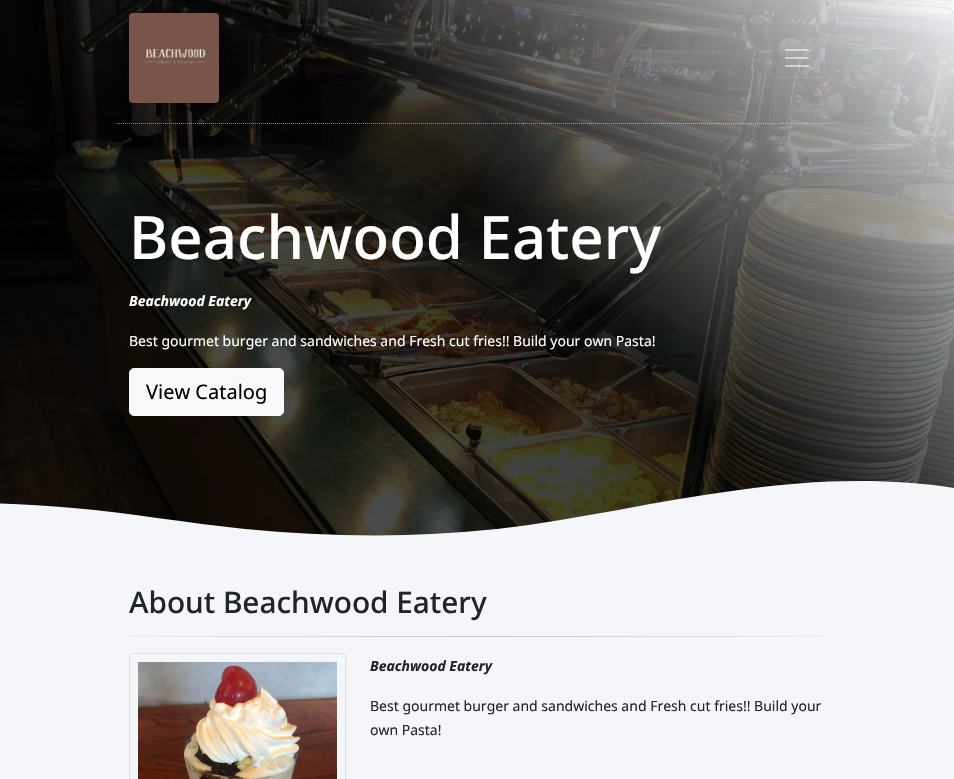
static SkFont makeFont(const char* family, int weight, float size, bool italic = false) {
  SkFontStyle style(weight, SkFontStyle::kNormal_Width,
    italic ? SkFontStyle::kItalic_Slant : SkFontStyle::kUpright_Slant);
  SkFont result(fontMgr->matchFamilyStyle(family, style), size);
  result.setSubpixel(true);
  return result;
}

static void text(SkCanvas* c, const char* s, float x, float y, const SkFont& font, SkColor color) {
  SkPaint ink(SkColor4f::FromColor(color));
  ink.setAntiAlias(true);
  c->drawString(s, x, y, font, ink);
}

static void picture(SkCanvas* c, const char* path, float l, float t, float r, float b) {
  auto image = SkImages::DeferredFromEncodedData(SkData::MakeFromFileName(path));
  c->drawImageRect(image, SkRect::MakeLTRB(l, t, r, b), SkSamplingOptions());
}

void draw(SkCanvas* c) {
  SkPaint paint;
  paint.setAntiAlias(true);
  c->clear(0xfff4f6f9);
  picture(c, "img_03.png", 0, 0, 954, 536);
  paint.setStyle(SkPaint::kStroke_Style);
  paint.setStrokeWidth(1);
  paint.setColor(0x80ffffff);
  paint.setPathEffect(SkDashPathEffect::Make({{1, 1}}, 0));
  c->drawPath(SkPathBuilder().moveTo(117, 123.5f).lineTo(837, 123.5f).detach(), paint);
  paint.setPathEffect(nullptr);
  picture(c, "img_01.png", 129, 13, 219, 103);
  paint.setColor(0x1affffff);
  c->drawRoundRect(SkRect::MakeLTRB(769.5f, 38.5f, 824.5f, 77.5f), 3.5f, 3.5f, paint);
  picture(c, "img_02.png", 785, 49, 809, 67);
  SkFont face1 = makeFont("Noto Sans", 500, 60);
  text(c, "Beachwood Eatery", 129, 259, face1, 0xffffffff);
  SkFont face2 = makeFont("Noto Sans", 700, 14, true);
  text(c, "Beachwood Eatery", 129, 306, face2, 0xffffffff);
  SkFont face3 = makeFont("Noto Sans", 400, 14);
  text(c, "Best gourmet burger and sandwiches and Fresh cut fries!! Build your own Pasta!", 129, 346, face3, 0xffffffff);
  paint.setStyle(SkPaint::kFill_Style);
  paint.setColor(0xfff8f9fa);
  c->drawRoundRect(SkRect::MakeLTRB(129.5f, 368.5f, 283.5f, 415.5f), 4.5f, 4.5f, paint);
  paint.setStyle(SkPaint::kStroke_Style);
  c->drawRoundRect(SkRect::MakeLTRB(129.5f, 368.5f, 283.5f, 415.5f), 4.5f, 4.5f, paint);
  SkFont face4 = makeFont("Noto Sans", 400, 20);
  text(c, "View Catalog", 146, 399, face4, 0xff000000);
  paint.setStyle(SkPaint::kFill_Style);
  paint.setColor(0xfff4f6f9);
  c->drawPath(SkPathBuilder().moveTo(73, 508).cubicTo(131, 513, 187, 523, 245, 529).cubicTo(328, 537, 414, 538, 497, 529).cubicTo(577, 520, 660, 500, 739, 490).cubicTo(809, 480, 886, 477, 954, 488).lineTo(954, 536).lineTo(-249, 536).lineTo(-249, 522).cubicTo(-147, 503, -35, 498, 73, 508).close().detach(), paint);
  SkFont face5 = makeFont("Noto Sans", 500, 29.75f);
  text(c, "About Beachwood Eatery", 129, 613, face5, 0xff212529);
  {
    const SkColor colors[] = {0xffeaecee, 0xffc4c5c8, 0xffeaecee};
    const float stops[] = {0, 0.5f, 1};
    const SkPoint ends[] = {{129, 637}, {825, 637}};
    paint.setShader(SkGradientShader::MakeLinear(ends, colors, stops, 3, SkTileMode::kClamp));
    paint.setAlpha(255);
  }
  c->drawRect(SkRect::MakeLTRB(129, 636, 825, 637), paint);
  paint.setStyle(SkPaint::kStroke_Style);
  paint.setShader(nullptr);
  paint.setColor(0xffdee2e6);
  c->drawRoundRect(SkRect::MakeLTRB(129.5f, 653.5f, 345.5f, 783.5f), 3.5f, 3.5f, paint);
  picture(c, "img_04.png", 138, 662, 337, 779);
  text(c, "Beachwood Eatery", 370, 671, face2, 0xff212529);
  text(c, "Best gourmet burger and sandwiches and Fresh cut fries!! Build your", 370, 711, face3, 0xff212529);
  text(c, "own Pasta!", 370, 735, face3, 0xff212529);
}
